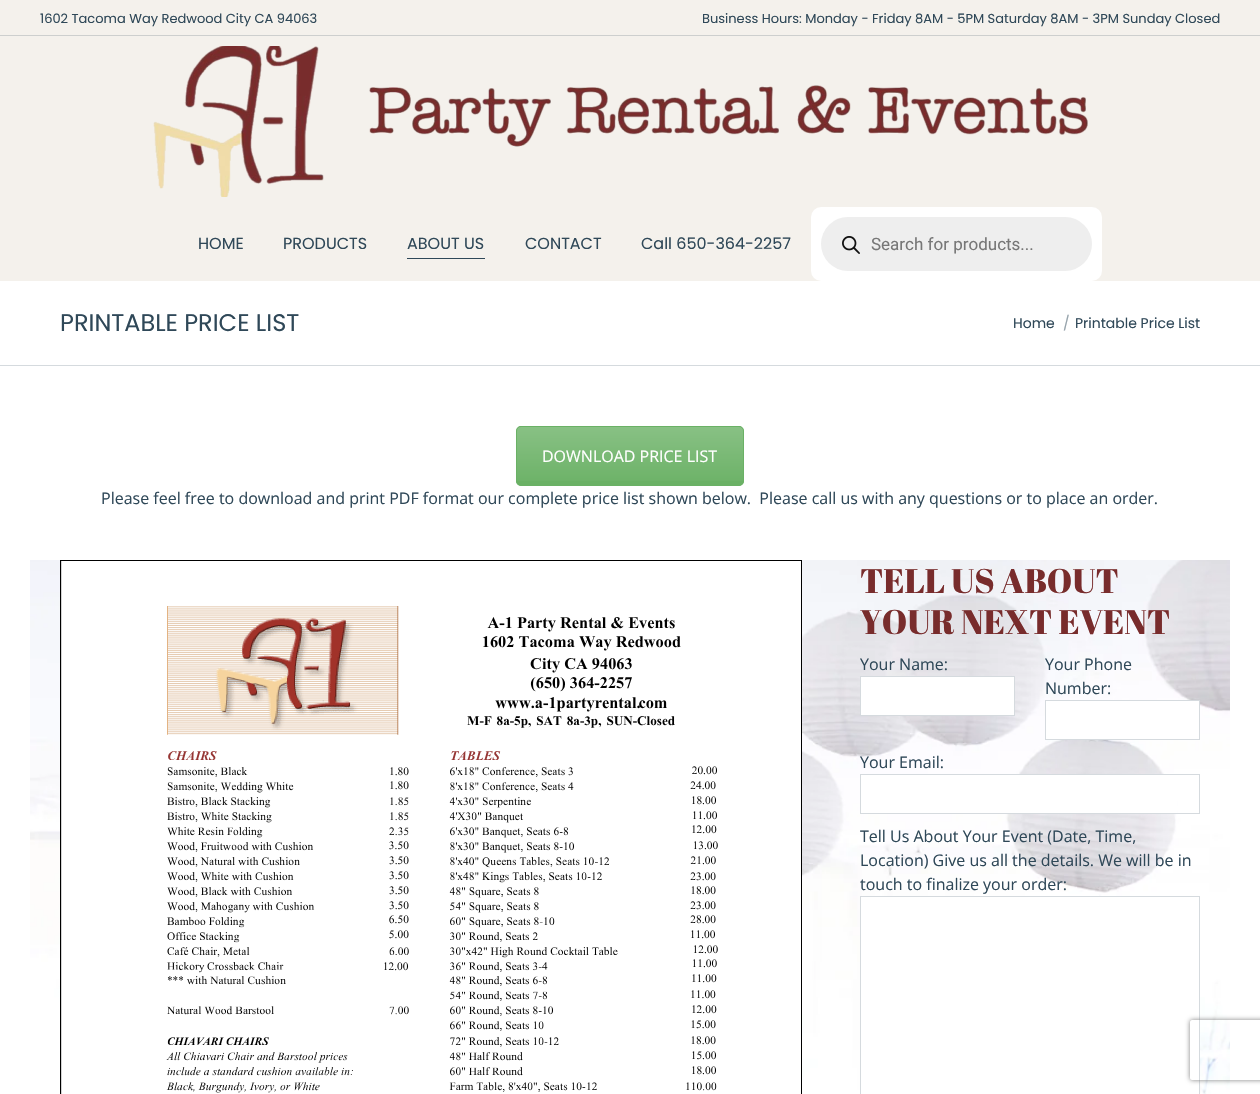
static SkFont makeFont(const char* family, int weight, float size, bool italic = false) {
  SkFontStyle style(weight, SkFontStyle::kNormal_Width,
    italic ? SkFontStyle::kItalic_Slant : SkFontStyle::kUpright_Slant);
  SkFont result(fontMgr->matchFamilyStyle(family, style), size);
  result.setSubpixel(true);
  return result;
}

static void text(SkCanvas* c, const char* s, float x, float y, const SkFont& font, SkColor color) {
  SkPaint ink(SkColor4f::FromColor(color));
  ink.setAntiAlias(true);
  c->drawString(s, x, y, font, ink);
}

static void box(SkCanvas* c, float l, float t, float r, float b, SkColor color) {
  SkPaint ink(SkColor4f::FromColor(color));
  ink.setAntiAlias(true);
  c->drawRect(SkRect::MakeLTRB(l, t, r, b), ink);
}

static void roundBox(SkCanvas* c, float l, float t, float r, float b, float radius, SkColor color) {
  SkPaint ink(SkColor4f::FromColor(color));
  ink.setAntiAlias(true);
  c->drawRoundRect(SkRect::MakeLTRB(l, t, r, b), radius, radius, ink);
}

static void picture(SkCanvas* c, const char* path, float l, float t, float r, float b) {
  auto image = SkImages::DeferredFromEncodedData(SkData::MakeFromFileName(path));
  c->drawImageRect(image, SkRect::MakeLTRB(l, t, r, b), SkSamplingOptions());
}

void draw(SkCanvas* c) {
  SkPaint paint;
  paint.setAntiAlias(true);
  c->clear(0xffffffff);
  box(c, 0, 0, 1260, 281, 0xfff4f1ec);
  SkFont face1 = makeFont("Poppins", 400, 13);
  text(c, "1602 Tacoma Way Redwood City CA 94063", 40, 23, face1, 0xff2f4858);
  text(c, "Business Hours: Monday - Friday 8AM - 5PM Saturday 8AM - 3PM Sunday Closed", 702, 23, face1, 0xff2f4858);
  box(c, 0, 35, 1260, 36, 0xffcdcfce);
  picture(c, "img_01.png", 153, 46, 1088, 197);
  SkFont face2 = makeFont("Poppins", 400, 16);
  text(c, "HOME", 198, 249, face2, 0xff2f4858);
  text(c, "PRODUCTS", 283, 249, face2, 0xff2f4858);
  text(c, "ABOUT US", 407, 249, face2, 0xff2f4858);
  box(c, 407, 258, 485, 259, 0xff2f4858);
  text(c, "CONTACT", 525, 249, face2, 0xff2f4858);
  text(c, "Call 650-364-2257", 641, 249, face2, 0xff2f4858);
  roundBox(c, 811, 207, 1102, 281, 10, 0xffffffff);
  roundBox(c, 821, 217, 1092, 271, 27, 0xffeeeeee);
  picture(c, "img_02.png", 842, 236, 860, 254);
  SkFont face3 = makeFont("Roboto", 400, 17);
  text(c, "Search for products...", 871, 250, face3, 0xff777777);
  box(c, 0, 365, 1260, 366, 0xffd5dade);
  SkFont face4 = makeFont("Poppins", 400, 24);
  text(c, "PRINTABLE PRICE LIST", 60, 331, face4, 0xff2f4858);
  SkFont face5 = makeFont("Poppins", 400, 14);
  text(c, "Home", 1013, 328, face5, 0xff2f4858);
  text(c, "/", 1063, 328, face5, 0xff97a4ac);
  text(c, "Printable Price List", 1075, 328, face5, 0xff2f4858);
  roundBox(c, 516, 426, 744, 486, 5, 0xff6ab165);
  c->save();
  c->clipPath(SkPathBuilder().moveTo(521, 426).lineTo(739, 426).cubicTo(742, 426, 744, 428, 744, 431).lineTo(744, 481).cubicTo(744, 484, 742, 486, 739, 486).lineTo(521, 486).cubicTo(518, 486, 516, 484, 516, 481).lineTo(516, 431).cubicTo(516, 428, 518, 426, 521, 426).close().detach(), true);
  {
    const SkColor colors[] = {0x33ffffff, 0x03ffffff};
    const float stops[] = {0, 1};
    const SkPoint ends[] = {{630, 427}, {630, 485}};
    paint.setShader(SkGradientShader::MakeLinear(ends, colors, stops, 2, SkTileMode::kClamp));
    paint.setAlpha(255);
  }
  c->drawRect(SkRect::MakeLTRB(516, 427, 744, 481), paint);
  c->restore();
  paint.setStyle(SkPaint::kStroke_Style);
  paint.setStrokeWidth(1);
  paint.setShader(nullptr);
  paint.setColor(0xff6ab165);
  c->drawRoundRect(SkRect::MakeLTRB(516.5f, 426.5f, 743.5f, 485.5f), 4.5f, 4.5f, paint);
  SkFont face6 = makeFont("Open Sans", 400, 16);
  text(c, "DOWNLOAD PRICE LIST", 542, 462, face6, 0xffffffff);
  text(c, "Please feel free to download and print PDF format our complete price list shown below.  Please call us with any questions or to place an order.", 101, 504, face6, 0xff2f4858);
  picture(c, "img_03.png", 30, 560, 1230, 1094);
  box(c, 61, 561, 62, 1094, 0xffd3d3d3);
  paint.setColor(0xff000000);
  c->drawRect(SkRect::MakeLTRB(60.5f, 560.5f, 801.5f, 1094.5f), paint);
  box(c, 62, 561, 801, 1094, 0xffffffff);
  picture(c, "img_04.png", 166, 606, 718, 1093);
  SkFont face7 = makeFont("Abril Fatface", 400, 34);
  text(c, "TELL US ABOUT", 860, 593, face7, 0xff782c2c);
  text(c, "YOUR NEXT EVENT", 860, 634, face7, 0xff782c2c);
  text(c, "Your Name:", 860, 670, face6, 0xff2f4858);
  paint.setStyle(SkPaint::kFill_Style);
  paint.setColor(0xffffffff);
  c->drawRect(SkRect::MakeLTRB(860.5f, 676.5f, 1014.5f, 715.5f), paint);
  paint.setStyle(SkPaint::kStroke_Style);
  paint.setColor(0xffd5dade);
  c->drawRect(SkRect::MakeLTRB(860.5f, 676.5f, 1014.5f, 715.5f), paint);
  text(c, "Your Phone", 1045, 670, face6, 0xff2f4858);
  text(c, "Number:", 1045, 694, face6, 0xff2f4858);
  paint.setStyle(SkPaint::kFill_Style);
  paint.setColor(0xffffffff);
  c->drawRect(SkRect::MakeLTRB(1045.5f, 700.5f, 1199.5f, 739.5f), paint);
  paint.setStyle(SkPaint::kStroke_Style);
  paint.setColor(0xffd5dade);
  c->drawRect(SkRect::MakeLTRB(1045.5f, 700.5f, 1199.5f, 739.5f), paint);
  text(c, "Your Email:", 860, 768, face6, 0xff2f4858);
  box(c, 861, 775, 1177, 813, 0xffffffff);
  c->drawRect(SkRect::MakeLTRB(860.5f, 774.5f, 1199.5f, 813.5f), paint);
  text(c, "Tell Us About Your Event (Date, Time,", 860, 842, face6, 0xff2f4858);
  text(c, "Location) Give us all the details. We will be in", 860, 866, face6, 0xff2f4858);
  text(c, "touch to finalize your order:", 860, 890, face6, 0xff2f4858);
  paint.setStyle(SkPaint::kFill_Style);
  paint.setColor(0xffffffff);
  c->drawRect(SkRect::MakeLTRB(860.5f, 896.5f, 1199.5f, 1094.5f), paint);
  paint.setStyle(SkPaint::kStroke_Style);
  paint.setColor(0xffd5dade);
  c->drawRect(SkRect::MakeLTRB(860.5f, 896.5f, 1199.5f, 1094.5f), paint);
  c->save();
  c->clipPath(SkPathBuilder(SkPathFillType::kEvenOdd).moveTo(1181, 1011).lineTo(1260, 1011).lineTo(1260, 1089).lineTo(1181, 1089).close().moveTo(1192, 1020).lineTo(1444, 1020).cubicTo(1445, 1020, 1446, 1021, 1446, 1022).lineTo(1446, 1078).cubicTo(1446, 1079, 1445, 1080, 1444, 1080).lineTo(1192, 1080).cubicTo(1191, 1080, 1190, 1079, 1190, 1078).lineTo(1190, 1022).cubicTo(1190, 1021, 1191, 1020, 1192, 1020).close().detach(), true);
  paint.setStyle(SkPaint::kFill_Style);
  paint.setColor(0xff808080);
  paint.setMaskFilter(SkMaskFilter::MakeBlur(kNormal_SkBlurStyle, 2.5f));
  c->drawRoundRect(SkRect::MakeLTRB(1190, 1020, 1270, 1080), 2, 2, paint);
  paint.setMaskFilter(nullptr);
  c->restore();
}
